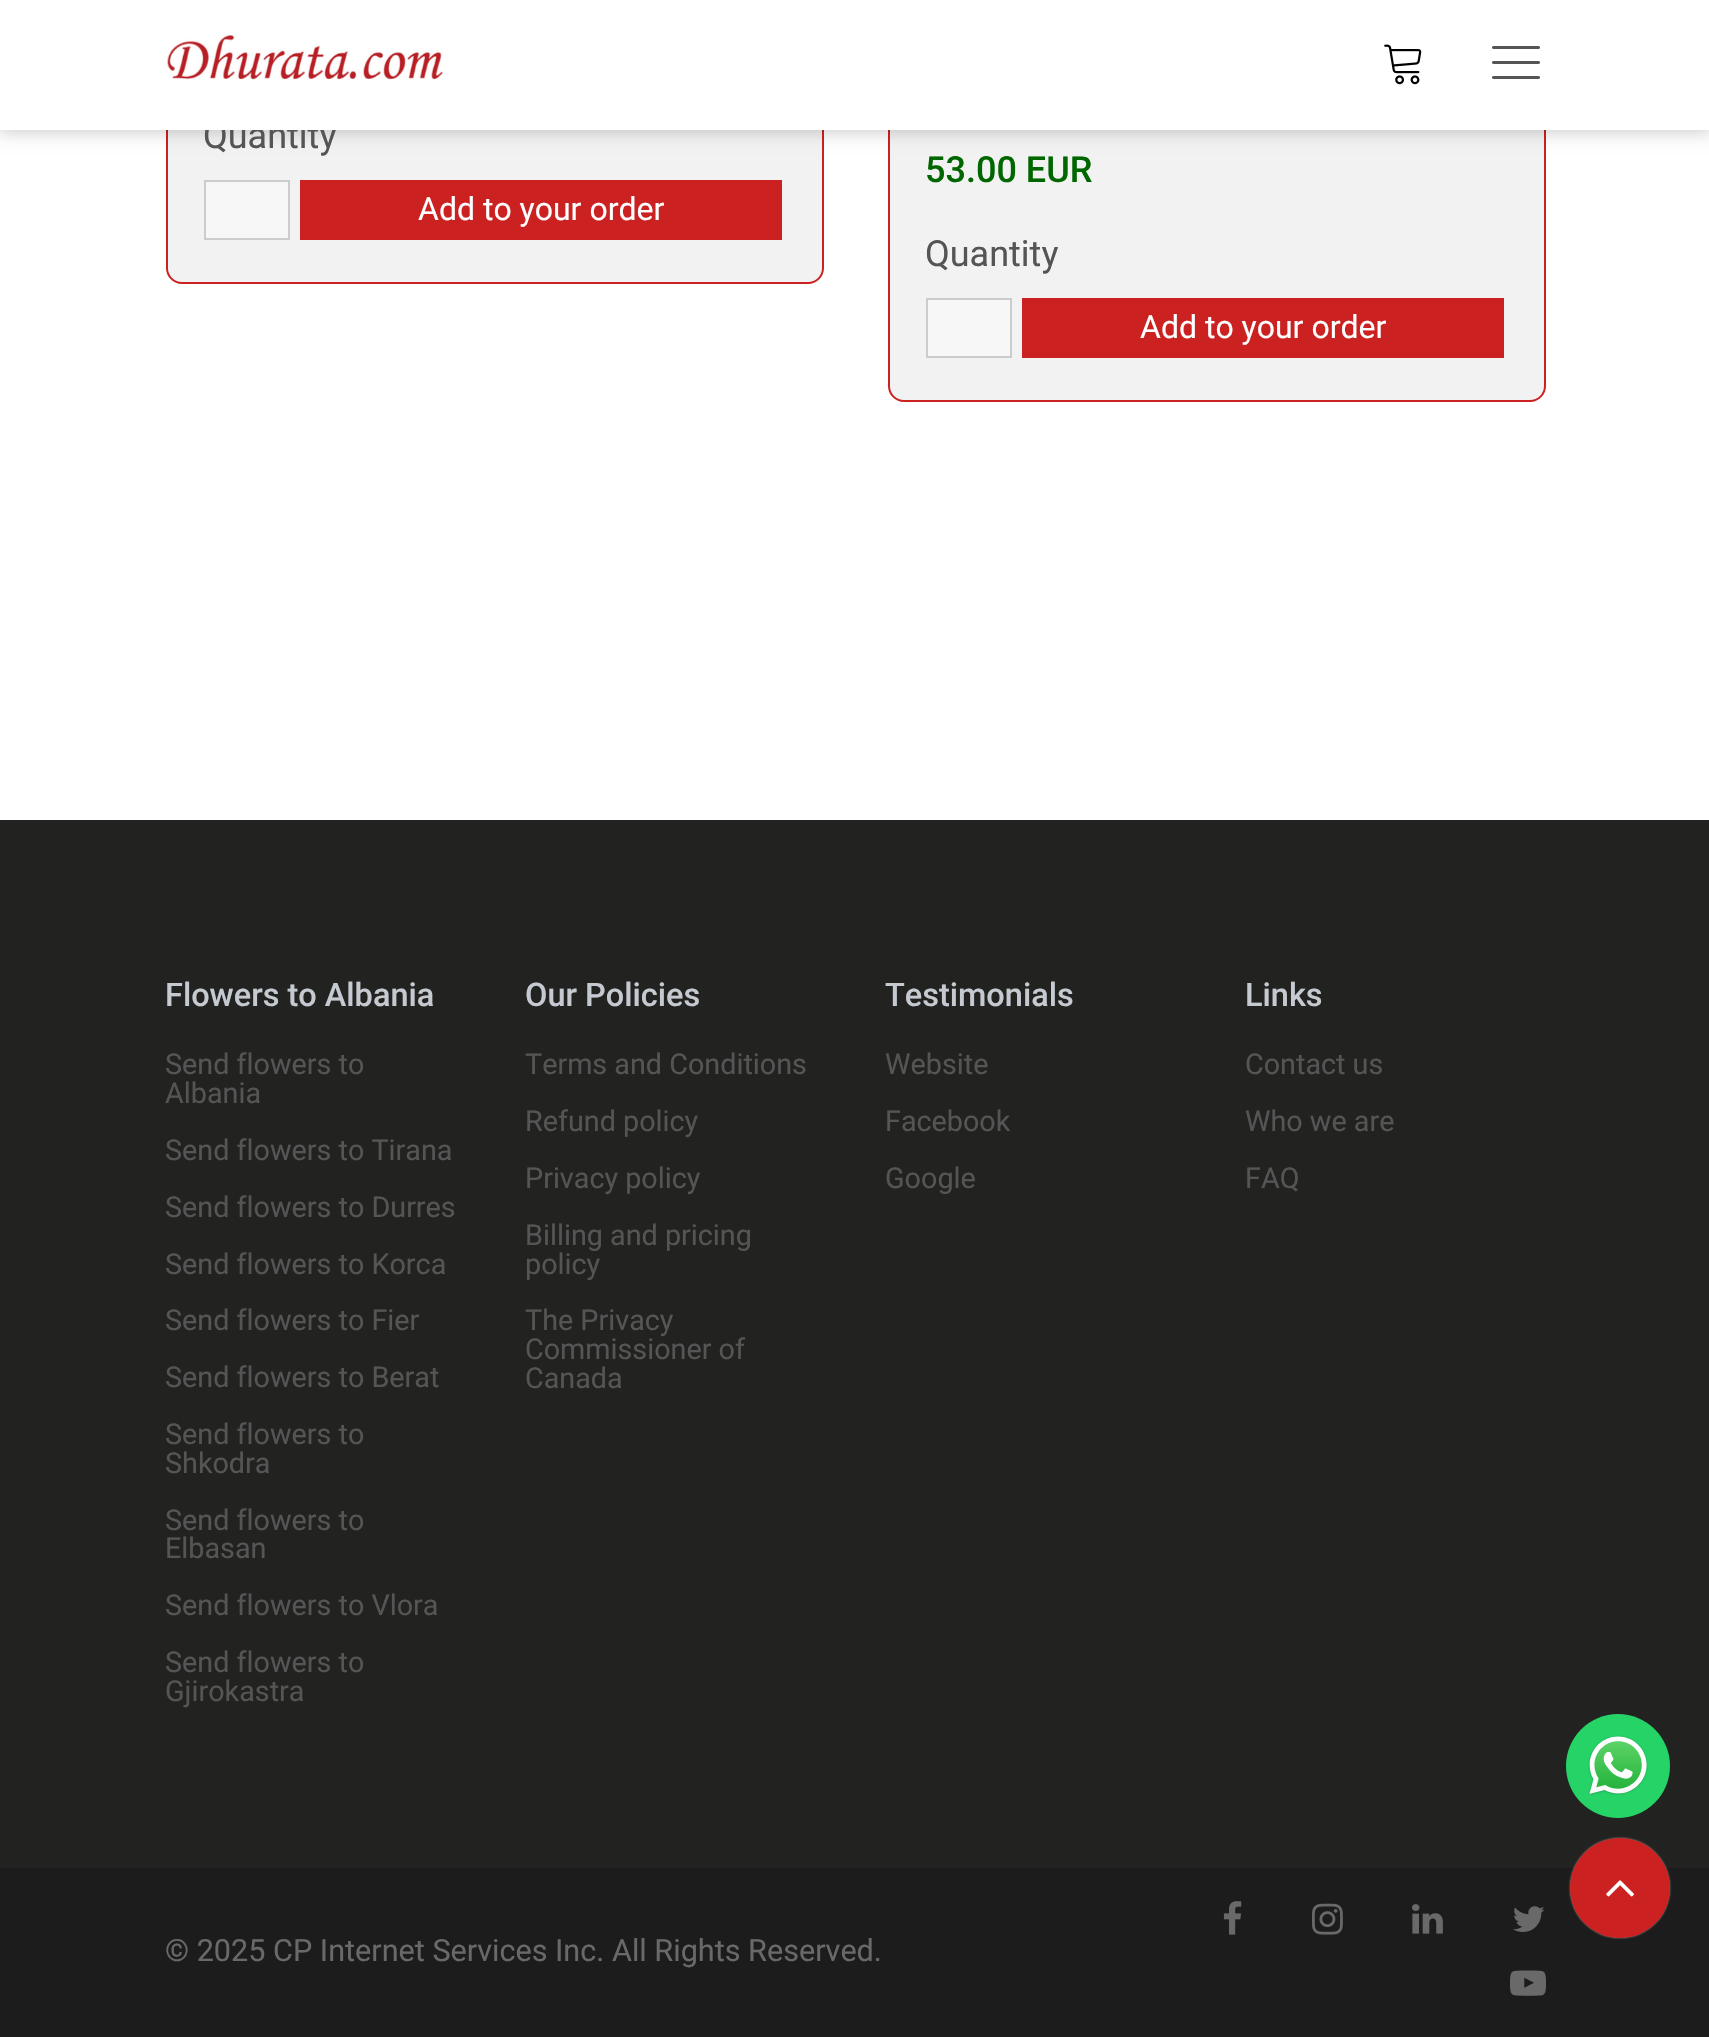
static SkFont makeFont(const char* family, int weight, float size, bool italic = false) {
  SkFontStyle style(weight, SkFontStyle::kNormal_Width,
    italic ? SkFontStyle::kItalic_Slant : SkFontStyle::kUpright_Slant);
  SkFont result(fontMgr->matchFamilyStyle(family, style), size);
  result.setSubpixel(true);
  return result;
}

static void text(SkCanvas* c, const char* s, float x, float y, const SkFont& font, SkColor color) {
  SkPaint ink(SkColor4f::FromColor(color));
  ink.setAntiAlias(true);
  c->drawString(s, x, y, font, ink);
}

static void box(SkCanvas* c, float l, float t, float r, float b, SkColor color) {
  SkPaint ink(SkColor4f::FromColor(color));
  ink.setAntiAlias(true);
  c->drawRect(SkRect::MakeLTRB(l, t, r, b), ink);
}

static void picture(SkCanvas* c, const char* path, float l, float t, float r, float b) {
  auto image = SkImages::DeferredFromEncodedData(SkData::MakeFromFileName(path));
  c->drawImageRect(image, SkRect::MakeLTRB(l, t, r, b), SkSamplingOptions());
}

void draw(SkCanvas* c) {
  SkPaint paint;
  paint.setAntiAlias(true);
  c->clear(0xffffffff);
  paint.setColor(0xfff2f2f2);
  c->drawRoundRect(SkRect::MakeLTRB(167, -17, 823, 283), 15, 15, paint);
  paint.setStyle(SkPaint::kStroke_Style);
  paint.setStrokeWidth(2);
  paint.setColor(0xffcc2121);
  c->drawRoundRect(SkRect::MakeLTRB(167, -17, 823, 283), 15, 15, paint);
  paint.setStyle(SkPaint::kFill_Style);
  paint.setColor(0xfff2f2f2);
  c->drawRoundRect(SkRect::MakeLTRB(889, -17, 1545, 401), 15, 15, paint);
  paint.setStyle(SkPaint::kStroke_Style);
  paint.setColor(0xffcc2121);
  c->drawRoundRect(SkRect::MakeLTRB(889, -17, 1545, 401), 15, 15, paint);
  paint.setStyle(SkPaint::kFill_Style);
  paint.setColor(0x33000000);
  paint.setMaskFilter(SkMaskFilter::MakeBlur(kNormal_SkBlurStyle, 8));
  c->drawRect(SkRect::MakeLTRB(-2, -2, 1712, 132), paint);
  paint.setMaskFilter(nullptr);
  SkFont face1 = makeFont("Roboto", 400, 36);
  text(c, "Quantity", 203, 148, face1, 0xff555555);
  box(c, 0, 0, 1709, 130, 0xffffffff);
  picture(c, "img_01.png", 167, 35, 443, 80);
  picture(c, "img_02.png", 1384, 44, 1422, 85);
  picture(c, "img_03.png", 1492, 46, 1540, 79);
  paint.setColor(0xfff7f7f7);
  c->drawRect(SkRect::MakeLTRB(205, 181, 289, 239), paint);
  paint.setStyle(SkPaint::kStroke_Style);
  paint.setColor(0xffcccccc);
  c->drawRect(SkRect::MakeLTRB(205, 181, 289, 239), paint);
  box(c, 300, 180, 782, 240, 0xffcc2121);
  SkFont face2 = makeFont("Roboto", 400, 32);
  text(c, "Add to your order", 418, 220, face2, 0xffffffff);
  SkFont face3 = makeFont("Roboto", 500, 36);
  text(c, "53.00 EUR", 925, 182, face3, 0xff006600);
  text(c, "Quantity", 925, 266, face1, 0xff555555);
  paint.setStyle(SkPaint::kFill_Style);
  paint.setColor(0xfff7f7f7);
  c->drawRect(SkRect::MakeLTRB(927, 299, 1011, 357), paint);
  paint.setStyle(SkPaint::kStroke_Style);
  paint.setColor(0xffcccccc);
  c->drawRect(SkRect::MakeLTRB(927, 299, 1011, 357), paint);
  box(c, 1022, 298, 1504, 358, 0xffcc2121);
  text(c, "Add to your order", 1140, 338, face2, 0xffffffff);
  box(c, 0, 820, 1709, 1868, 0xff222221);
  SkFont face4 = makeFont("Roboto", 500, 32.5f);
  text(c, "Flowers to Albania", 165, 1006, face4, 0xffc4cad0);
  SkFont face5 = makeFont("Roboto", 400, 28.75f);
  text(c, "Send flowers to", 165, 1074, face5, 0xff555555);
  text(c, "Albania", 165, 1103, face5, 0xff555555);
  text(c, "Send flowers to Tirana", 165, 1160, face5, 0xff555555);
  text(c, "Send flowers to Durres", 165, 1217, face5, 0xff555555);
  text(c, "Send flowers to Korca", 165, 1274, face5, 0xff555555);
  text(c, "Send flowers to Fier", 165, 1330, face5, 0xff555555);
  text(c, "Send flowers to Berat", 165, 1387, face5, 0xff555555);
  text(c, "Send flowers to", 165, 1444, face5, 0xff555555);
  text(c, "Shkodra", 165, 1473, face5, 0xff555555);
  text(c, "Send flowers to", 165, 1530, face5, 0xff555555);
  text(c, "Elbasan", 165, 1558, face5, 0xff555555);
  text(c, "Send flowers to Vlora", 165, 1615, face5, 0xff555555);
  text(c, "Send flowers to", 165, 1672, face5, 0xff555555);
  text(c, "Gjirokastra", 165, 1701, face5, 0xff555555);
  text(c, "Our Policies", 525, 1006, face4, 0xffc4cad0);
  text(c, "Terms and Conditions", 525, 1074, face5, 0xff555555);
  text(c, "Refund policy", 525, 1131, face5, 0xff555555);
  text(c, "Privacy policy", 525, 1188, face5, 0xff555555);
  text(c, "Billing and pricing", 525, 1245, face5, 0xff555555);
  text(c, "policy", 525, 1274, face5, 0xff555555);
  text(c, "The Privacy", 525, 1330, face5, 0xff555555);
  text(c, "Commissioner of", 525, 1359, face5, 0xff555555);
  text(c, "Canada", 525, 1388, face5, 0xff555555);
  text(c, "Testimonials", 885, 1006, face4, 0xffc4cad0);
  text(c, "Website", 885, 1074, face5, 0xff555555);
  text(c, "Facebook", 885, 1131, face5, 0xff555555);
  text(c, "Google", 885, 1188, face5, 0xff555555);
  text(c, "Links", 1245, 1006, face4, 0xffc4cad0);
  text(c, "Contact us", 1245, 1074, face5, 0xff555555);
  text(c, "Who we are", 1245, 1131, face5, 0xff555555);
  text(c, "FAQ", 1245, 1188, face5, 0xff555555);
  box(c, 0, 1868, 1709, 2037, 0xff1c1c1c);
  SkFont face6 = makeFont("Roboto", 400, 30.6f);
  text(c, "© 2025 CP Internet Services Inc. All Rights Reserved.", 165, 1961, face6, 0xff696969);
  picture(c, "img_04.png", 1223, 1901, 1242, 1935);
  picture(c, "img_05.png", 1312, 1903, 1343, 1935);
  picture(c, "img_06.png", 1412, 1904, 1443, 1934);
  picture(c, "img_07.png", 1513, 1906, 1545, 1932);
  picture(c, "img_08.png", 1510, 1970, 1546, 1996);
  paint.setStyle(SkPaint::kFill_Style);
  paint.setColor(0xff25d366);
  c->drawCircle(1618, 1766, 52, paint);
  picture(c, "img_09.png", 1588, 1735, 1648, 1795);
  paint.setColor(0x80ffffff);
  paint.setMaskFilter(SkMaskFilter::MakeBlur(kNormal_SkBlurStyle, 1));
  c->drawRoundRect(SkRect::MakeLTRB(1570, 1838, 1670, 1938), 50, 50, paint);
  paint.setMaskFilter(nullptr);
  paint.setColor(0xffcc2121);
  c->drawCircle(1620, 1888, 50, paint);
  picture(c, "img_10.png", 1606, 1880, 1634, 1897);
}
